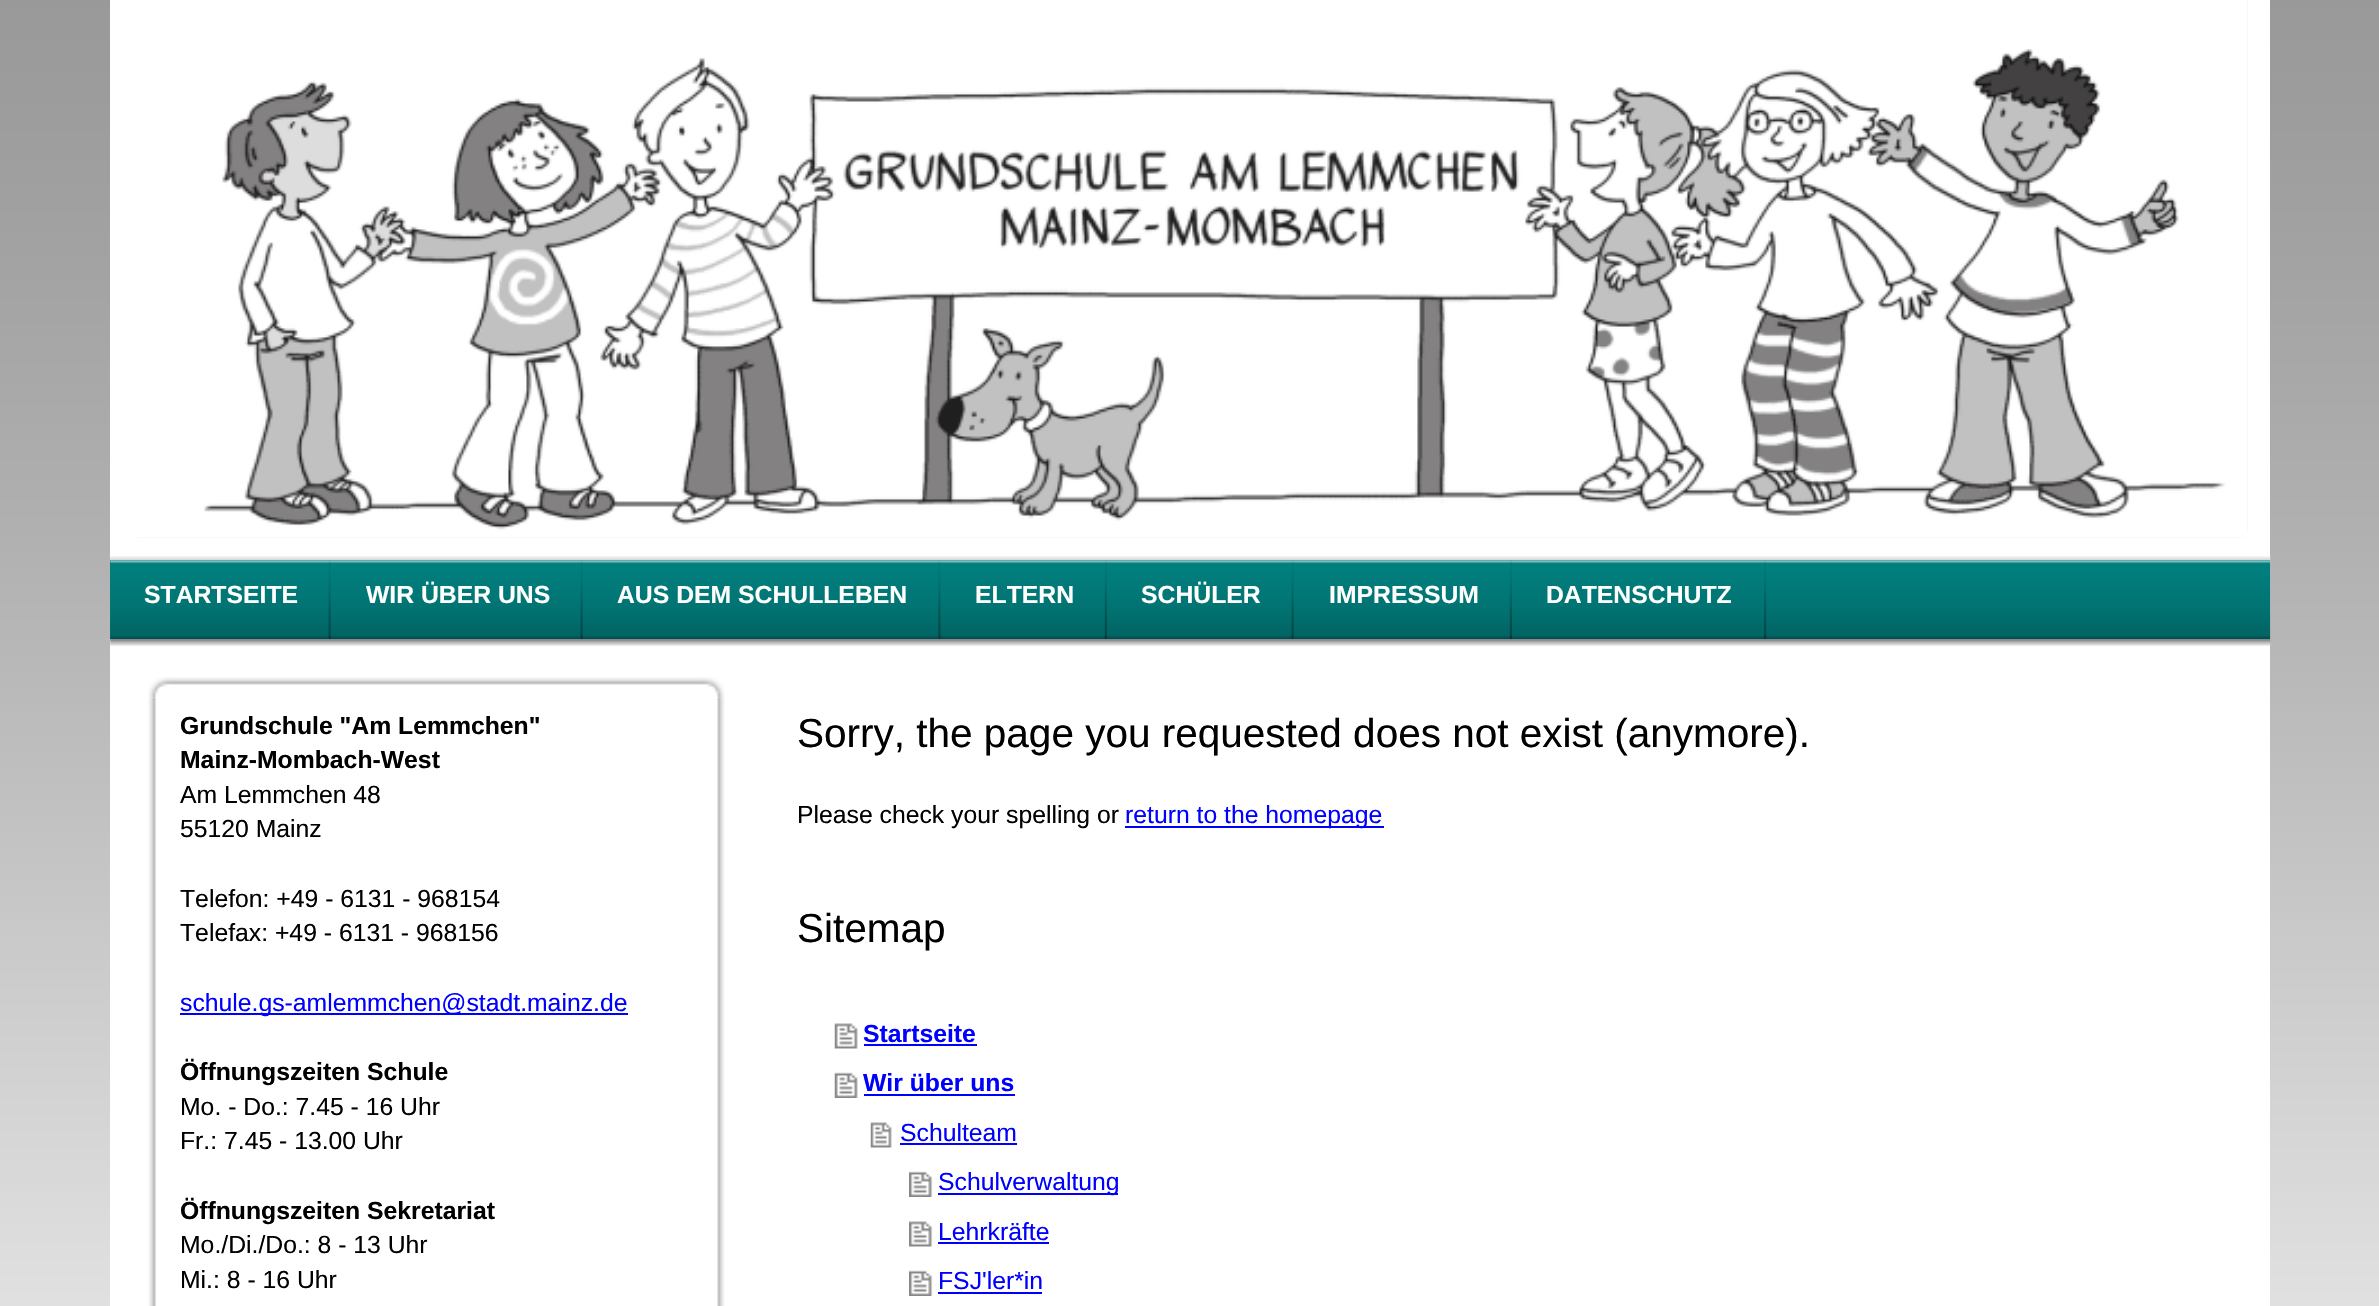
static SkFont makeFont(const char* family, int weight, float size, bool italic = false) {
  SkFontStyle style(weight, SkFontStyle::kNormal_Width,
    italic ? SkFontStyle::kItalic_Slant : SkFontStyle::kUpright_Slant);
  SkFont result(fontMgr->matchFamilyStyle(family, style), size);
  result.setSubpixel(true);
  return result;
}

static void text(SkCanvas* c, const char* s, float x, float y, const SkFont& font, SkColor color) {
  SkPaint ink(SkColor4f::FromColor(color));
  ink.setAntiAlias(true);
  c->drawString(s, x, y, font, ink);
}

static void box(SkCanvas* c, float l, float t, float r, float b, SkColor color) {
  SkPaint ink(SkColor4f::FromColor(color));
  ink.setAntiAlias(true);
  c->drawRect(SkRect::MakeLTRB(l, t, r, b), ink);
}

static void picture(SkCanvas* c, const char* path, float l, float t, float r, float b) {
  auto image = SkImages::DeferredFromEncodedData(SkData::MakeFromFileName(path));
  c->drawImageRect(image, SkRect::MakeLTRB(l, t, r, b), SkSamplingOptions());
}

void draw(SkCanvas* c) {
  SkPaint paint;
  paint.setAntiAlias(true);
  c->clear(0xffffffff);
  picture(c, "img_01.png", 0, 0, 2379, 1306);
  box(c, 110, 0, 2270, 1306, 0xffffffff);
  box(c, 133, 0, 2248, 538, 0xffeeeeee);
  picture(c, "img_02.png", 133, 0, 2248, 538);
  picture(c, "img_03.png", 133, 537, 139, 538);
  picture(c, "img_04.png", 2242, 532, 2248, 538);
  picture(c, "img_05.png", 110, 556, 2271, 561);
  box(c, 110, 560, 2270, 639, 0xff017f7e);
  picture(c, "img_06.png", 110, 560, 2271, 639);
  picture(c, "img_07.png", 328, 560, 331, 639);
  SkFont face1 = makeFont("Liberation Sans", 700, 24.75f);
  text(c, "STARTSEITE", 144, 603, face1, 0xffffffff);
  picture(c, "img_07.png", 580, 560, 583, 639);
  text(c, "WIR ÜBER UNS", 366, 603, face1, 0xffffffff);
  picture(c, "img_08.png", 938, 560, 941, 639);
  text(c, "AUS DEM SCHULLEBEN", 617, 603, face1, 0xffffffff);
  picture(c, "img_09.png", 1104, 560, 1107, 639);
  text(c, "ELTERN", 975, 603, face1, 0xffffffff);
  picture(c, "img_07.png", 1291, 560, 1294, 639);
  text(c, "SCHÜLER", 1141, 603, face1, 0xffffffff);
  picture(c, "img_10.png", 1509, 560, 1512, 639);
  text(c, "IMPRESSUM", 1329, 603, face1, 0xffffffff);
  picture(c, "img_11.png", 1764, 560, 1767, 639);
  text(c, "DATENSCHUTZ", 1546, 603, face1, 0xffffffff);
  picture(c, "img_12.png", 110, 639, 2271, 646);
  picture(c, "img_13.png", 148, 677, 725, 698);
  picture(c, "img_14.png", 148, 697, 725, 1306);
  text(c, "Grundschule \"Am Lemmchen\"", 180, 734, face1, 0xff000000);
  text(c, "Mainz-Mombach-West", 180, 768, face1, 0xff000000);
  SkFont face2 = makeFont("Liberation Sans", 400, 24.75f);
  text(c, "Am Lemmchen 48", 180, 803, face2, 0xff000000);
  text(c, "55120 Mainz", 180, 837, face2, 0xff000000);
  text(c, "Telefon: +49 - 6131 - 968154", 180, 907, face2, 0xff000000);
  text(c, "Telefax: +49 - 6131 - 968156", 180, 941, face2, 0xff000000);
  box(c, 180, 1013, 628, 1015, 0xff0000ff);
  text(c, "schule.gs-amlemmchen@stadt.mainz.de", 180, 1011, face2, 0xff0000ff);
  text(c, "Öffnungszeiten Schule", 180, 1080, face1, 0xff000000);
  text(c, "Mo. - Do.: 7.45 - 16 Uhr", 180, 1115, face2, 0xff000000);
  text(c, "Fr.: 7.45 - 13.00 Uhr", 180, 1149, face2, 0xff000000);
  text(c, "Öffnungszeiten Sekretariat", 180, 1219, face1, 0xff000000);
  text(c, "Mo./Di./Do.: 8 - 13 Uhr", 180, 1253, face2, 0xff000000);
  text(c, "Mi.: 8 - 16 Uhr", 180, 1288, face2, 0xff000000);
  SkFont face3 = makeFont("Liberation Sans", 400, 40.5f);
  text(c, "Sorry, the page you requested does not exist (anymore).", 797, 747, face3, 0xff000000);
  text(c, "Please check your spelling or", 797, 823, face2, 0xff000000);
  box(c, 1125, 826, 1384, 828, 0xff0000ff);
  text(c, "return to the homepage", 1125, 823, face2, 0xff0000ff);
  text(c, "Sitemap", 797, 942, face3, 0xff000000);
  picture(c, "img_15.png", 834, 1023, 858, 1049);
  text(c, "Startseite", 863, 1042, face1, 0xff0000ff);
  box(c, 864, 1044, 977, 1046, 0xff0000ff);
  picture(c, "img_16.png", 834, 1072, 858, 1098);
  text(c, "Wir über uns", 863, 1091, face1, 0xff0000ff);
  box(c, 864, 1094, 1015, 1096, 0xff0000ff);
  picture(c, "img_17.png", 870, 1122, 892, 1148);
  text(c, "Schulteam", 900, 1141, face2, 0xff0000ff);
  box(c, 900, 1143, 1017, 1145, 0xff0000ff);
  picture(c, "img_18.png", 909, 1171, 933, 1197);
  box(c, 938, 1193, 1118, 1195, 0xff0000ff);
  text(c, "Schulverwaltung", 938, 1190, face2, 0xff0000ff);
  picture(c, "img_19.png", 909, 1221, 933, 1247);
  text(c, "Lehrkräfte", 938, 1240, face2, 0xff0000ff);
  box(c, 938, 1242, 1049, 1244, 0xff0000ff);
  picture(c, "img_18.png", 909, 1270, 933, 1296);
  text(c, "FSJ'ler*in", 938, 1289, face2, 0xff0000ff);
  box(c, 938, 1292, 1042, 1294, 0xff0000ff);
}
